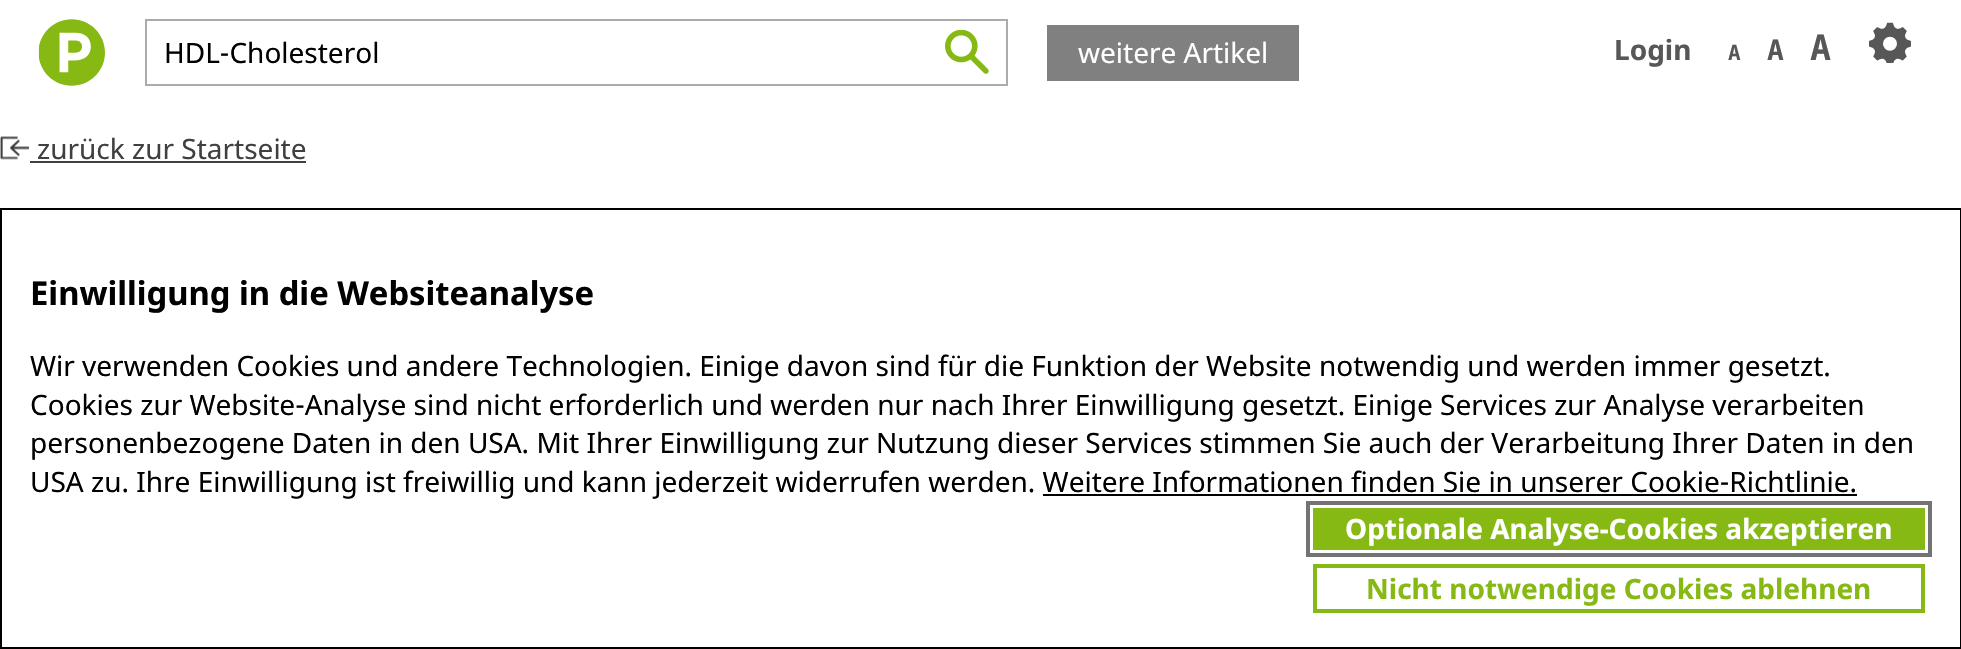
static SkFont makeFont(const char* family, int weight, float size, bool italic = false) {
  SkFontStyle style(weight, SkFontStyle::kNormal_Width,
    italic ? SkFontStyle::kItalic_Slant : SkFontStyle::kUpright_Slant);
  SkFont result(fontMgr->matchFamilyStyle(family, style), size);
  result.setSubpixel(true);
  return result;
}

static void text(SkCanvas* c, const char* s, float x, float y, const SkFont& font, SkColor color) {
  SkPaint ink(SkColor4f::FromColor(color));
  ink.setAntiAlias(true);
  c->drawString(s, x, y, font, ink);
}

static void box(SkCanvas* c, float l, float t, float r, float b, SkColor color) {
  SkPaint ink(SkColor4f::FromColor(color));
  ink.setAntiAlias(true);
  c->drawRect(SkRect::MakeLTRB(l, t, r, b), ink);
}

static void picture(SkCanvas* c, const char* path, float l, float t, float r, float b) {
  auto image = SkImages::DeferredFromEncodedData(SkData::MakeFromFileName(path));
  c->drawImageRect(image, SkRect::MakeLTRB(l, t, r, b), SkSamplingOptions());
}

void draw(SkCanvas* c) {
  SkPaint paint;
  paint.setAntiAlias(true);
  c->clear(0xffffffff);
  picture(c, "img_01.png", 38, 19, 105, 86);
  picture(c, "img_02.png", 945, 30, 989, 74);
  paint.setStyle(SkPaint::kStroke_Style);
  paint.setStrokeWidth(2);
  paint.setColor(0xffababab);
  c->drawRect(SkRect::MakeLTRB(146, 20, 1007, 85), paint);
  SkFont face1 = makeFont("Noto Sans", 400, 28);
  text(c, "HDL-Cholesterol", 164, 63, face1, 0xff000000);
  box(c, 1047, 25, 1299, 81, 0xff808080);
  text(c, "weitere Artikel", 1078, 63, face1, 0xffffffff);
  SkFont face2 = makeFont("Noto Sans", 700, 28);
  text(c, "Login", 1614, 60, face2, 0xff575757);
  SkFont face3 = makeFont("DejaVu Sans Mono", 700, 21);
  text(c, "A", 1728, 60, face3, 0xff575757);
  SkFont face4 = makeFont("DejaVu Sans Mono", 700, 28);
  text(c, "A", 1767, 60, face4, 0xff575757);
  SkFont face5 = makeFont("DejaVu Sans Mono", 700, 35);
  text(c, "A", 1810, 60, face5, 0xff575757);
  picture(c, "img_03.png", 1869, 22, 1911, 63);
  picture(c, "img_04.png", 0, 136, 30, 160);
  text(c, "zurück zur Startseite", 37, 159, face1, 0xff404040);
  box(c, 30, 161, 306, 163, 0xff404040);
  paint.setColor(0xff000000);
  c->drawRect(SkRect::MakeLTRB(1, 209, 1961, 648), paint);
  SkFont face6 = makeFont("Noto Sans", 700, 32.75f);
  text(c, "Einwilligung in die Websiteanalyse", 30, 305, face6, 0xff000000);
  text(c, "Wir verwenden Cookies und andere Technologien. Einige davon sind für die Funktion der Website notwendig und werden immer gesetzt.", 30, 376, face1, 0xff000000);
  text(c, "Cookies zur Website-Analyse sind nicht erforderlich und werden nur nach Ihrer Einwilligung gesetzt. Einige Services zur Analyse verarbeiten", 30, 415, face1, 0xff000000);
  text(c, "personenbezogene Daten in den USA. Mit Ihrer Einwilligung zur Nutzung dieser Services stimmen Sie auch der Verarbeitung Ihrer Daten in den", 30, 453, face1, 0xff000000);
  text(c, "USA zu. Ihre Einwilligung ist freiwillig und kann jederzeit widerrufen werden. Weitere Informationen finden Sie in unserer Cookie-Richtlinie.", 30, 492, face1, 0xff000000);
  box(c, 1043, 494, 1857, 496, 0xff000000);
  paint.setStrokeWidth(4);
  paint.setColor(0xff737373);
  c->drawRect(SkRect::MakeLTRB(1308, 503, 1930, 555), paint);
  box(c, 1313, 508, 1925, 550, 0xff87b914);
  text(c, "Optionale Analyse-Cookies akzeptieren", 1345, 539, face2, 0xffffffff);
  paint.setColor(0xff87b914);
  c->drawRect(SkRect::MakeLTRB(1315, 566, 1923, 611), paint);
  text(c, "Nicht notwendige Cookies ablehnen", 1366, 599, face2, 0xff87b914);
}
